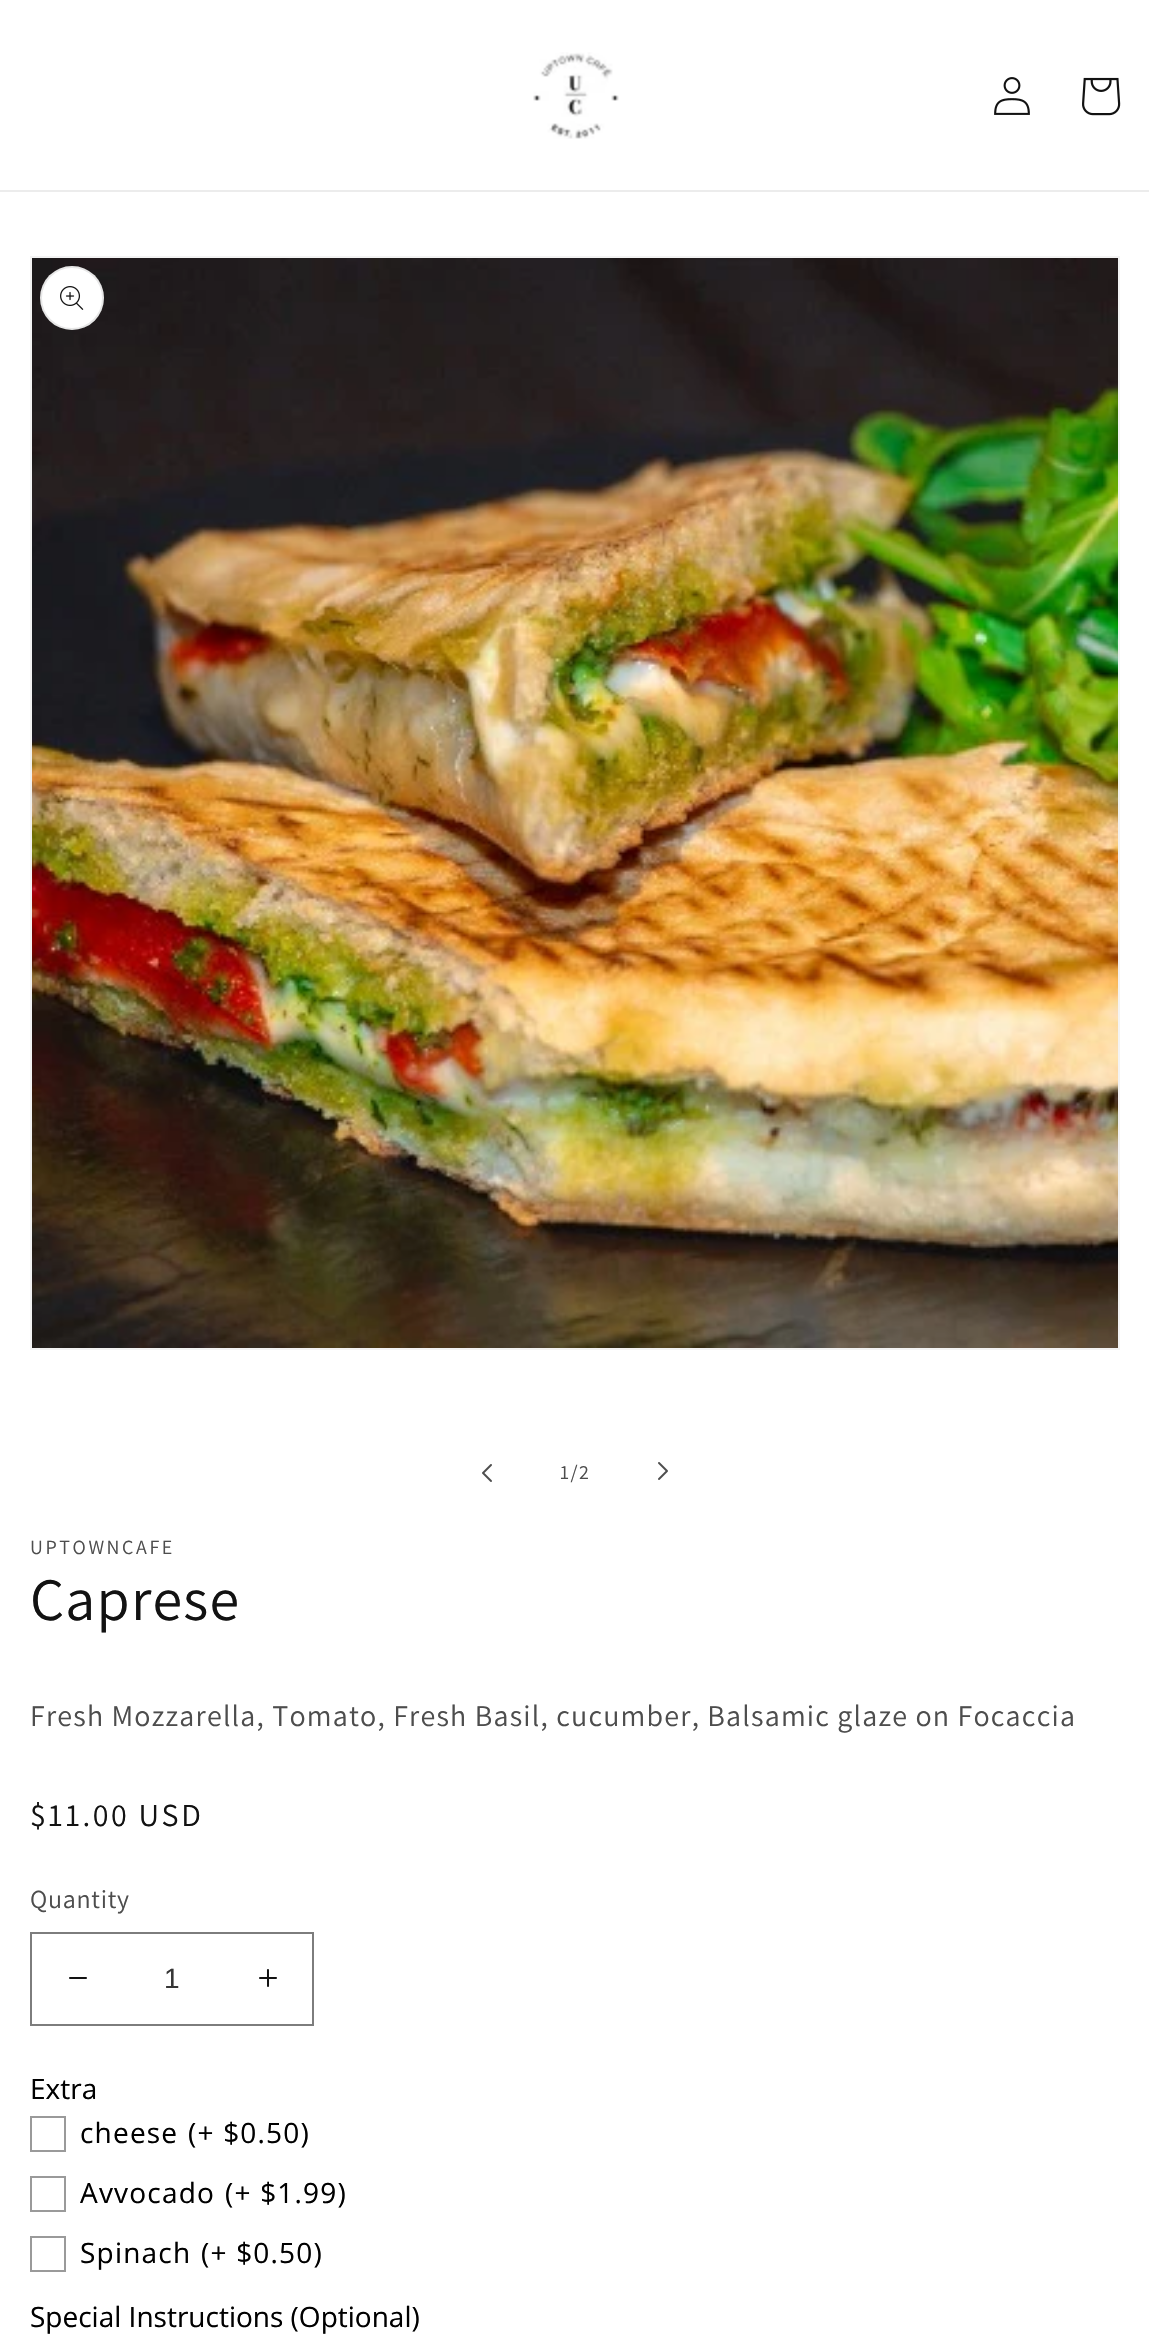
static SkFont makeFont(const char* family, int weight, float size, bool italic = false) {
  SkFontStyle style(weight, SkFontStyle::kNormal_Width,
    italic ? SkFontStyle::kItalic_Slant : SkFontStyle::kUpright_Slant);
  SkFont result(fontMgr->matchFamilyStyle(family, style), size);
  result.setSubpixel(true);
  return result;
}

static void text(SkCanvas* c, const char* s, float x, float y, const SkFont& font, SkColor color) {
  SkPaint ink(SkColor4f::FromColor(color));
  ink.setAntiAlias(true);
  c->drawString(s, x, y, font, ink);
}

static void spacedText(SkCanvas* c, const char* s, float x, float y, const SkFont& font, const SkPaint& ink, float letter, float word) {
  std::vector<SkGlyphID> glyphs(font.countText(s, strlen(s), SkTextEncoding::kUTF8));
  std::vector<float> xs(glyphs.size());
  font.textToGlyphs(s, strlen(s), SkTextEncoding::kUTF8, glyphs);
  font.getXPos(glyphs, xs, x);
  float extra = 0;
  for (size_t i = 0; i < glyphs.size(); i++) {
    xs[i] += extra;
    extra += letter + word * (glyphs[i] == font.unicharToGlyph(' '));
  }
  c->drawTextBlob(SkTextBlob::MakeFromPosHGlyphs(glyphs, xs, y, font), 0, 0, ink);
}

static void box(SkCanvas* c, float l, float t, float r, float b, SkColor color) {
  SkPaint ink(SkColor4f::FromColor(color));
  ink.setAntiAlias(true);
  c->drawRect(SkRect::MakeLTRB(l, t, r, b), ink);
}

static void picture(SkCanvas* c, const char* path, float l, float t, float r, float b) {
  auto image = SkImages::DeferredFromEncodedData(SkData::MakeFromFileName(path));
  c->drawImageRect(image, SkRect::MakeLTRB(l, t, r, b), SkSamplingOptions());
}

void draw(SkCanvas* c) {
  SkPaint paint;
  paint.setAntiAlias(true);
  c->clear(0xffffffff);
  box(c, 0, 190, 1149, 192, 0xffececec);
  picture(c, "img_01.png", 533, 52, 619, 139);
  picture(c, "img_02.png", 994, 77, 1030, 115);
  picture(c, "img_03.png", 1082, 77, 1121, 116);
  paint.setStyle(SkPaint::kStroke_Style);
  paint.setStrokeWidth(2);
  paint.setColor(0xfff3f3f3);
  c->drawRect(SkRect::MakeLTRB(31, 257, 1119, 1349), paint);
  picture(c, "img_04.png", 32, 258, 1118, 1348);
  paint.setStyle(SkPaint::kFill_Style);
  paint.setColor(0xffffffff);
  c->drawCircle(72, 298, 32, paint);
  paint.setStyle(SkPaint::kStroke_Style);
  paint.setColor(0x1a121212);
  c->drawCircle(72, 298, 31, paint);
  picture(c, "img_05.png", 60, 286, 84, 310);
  picture(c, "img_06.png", 482, 1464, 492, 1482);
  SkFont face1 = makeFont("Assistant", 400, 20);
  paint.setStyle(SkPaint::kFill_Style);
  paint.setColor(0xff4d4d4d);
  spacedText(c, "1/2", 560, 1479, face1, paint, 1.5f, 0);
  picture(c, "img_07.png", 658, 1462, 668, 1480);
  spacedText(c, "UPTOWNCAFE", 30, 1554, face1, paint, 2.6f, 0);
  SkFont face2 = makeFont("Assistant", 400, 60);
  paint.setColor(0xff121212);
  spacedText(c, "Caprese", 30, 1620, face2, paint, 1.2f, 0);
  SkFont face3 = makeFont("Assistant", 400, 30);
  paint.setColor(0xff4d4d4d);
  spacedText(c, "Fresh Mozzarella, Tomato, Fresh Basil, cucumber, Balsamic glaze on Focaccia", 30, 1726, face3, paint, 1.2f, 0);
  SkFont face4 = makeFont("Assistant", 400, 32);
  paint.setColor(0xff121212);
  spacedText(c, "$11.00 USD", 30, 1826, face4, paint, 2.6f, 0);
  SkFont face5 = makeFont("Assistant", 400, 26);
  paint.setColor(0xff4d4d4d);
  spacedText(c, "Quantity", 30, 1908, face5, paint, 0.75f, 0);
  picture(c, "img_08.png", 69, 1977, 87, 1979);
  picture(c, "img_09.png", 259, 1969, 277, 1987);
  paint.setStyle(SkPaint::kStroke_Style);
  paint.setColor(0xff7d7d7d);
  c->drawRect(SkRect::MakeLTRB(31, 1933, 313, 2025), paint);
  SkFont face6 = makeFont("Liberation Sans", 400, 28);
  text(c, "1", 164, 1988, face6, 0xff363636);
  SkFont face7 = makeFont("Open Sans", 400, 28);
  text(c, "Extra", 30, 2099, face7, 0xff000000);
  paint.setColor(0xff9a9a9a);
  c->drawRect(SkRect::MakeLTRB(31, 2117, 65, 2151), paint);
  paint.setStyle(SkPaint::kFill_Style);
  paint.setColor(0xff000000);
  spacedText(c, "cheese", 80, 2143, face7, paint, 1.2f, 0);
  spacedText(c, "(+ $0.50)", 188, 2143, face7, paint, 1.2f, 0);
  paint.setStyle(SkPaint::kStroke_Style);
  paint.setColor(0xff9a9a9a);
  c->drawRect(SkRect::MakeLTRB(31, 2177, 65, 2211), paint);
  paint.setStyle(SkPaint::kFill_Style);
  paint.setColor(0xff000000);
  spacedText(c, "Avvocado", 80, 2203, face7, paint, 1.2f, 0);
  spacedText(c, "(+ $1.99)", 225, 2203, face7, paint, 1.2f, 0);
  paint.setStyle(SkPaint::kStroke_Style);
  paint.setColor(0xff9a9a9a);
  c->drawRect(SkRect::MakeLTRB(31, 2237, 65, 2271), paint);
  paint.setStyle(SkPaint::kFill_Style);
  paint.setColor(0xff000000);
  spacedText(c, "Spinach", 80, 2263, face7, paint, 1.2f, 0);
  spacedText(c, "(+ $0.50)", 201, 2263, face7, paint, 1.2f, 0);
  text(c, "Special Instructions (Optional)", 30, 2327, face7, 0xff000000);
}
